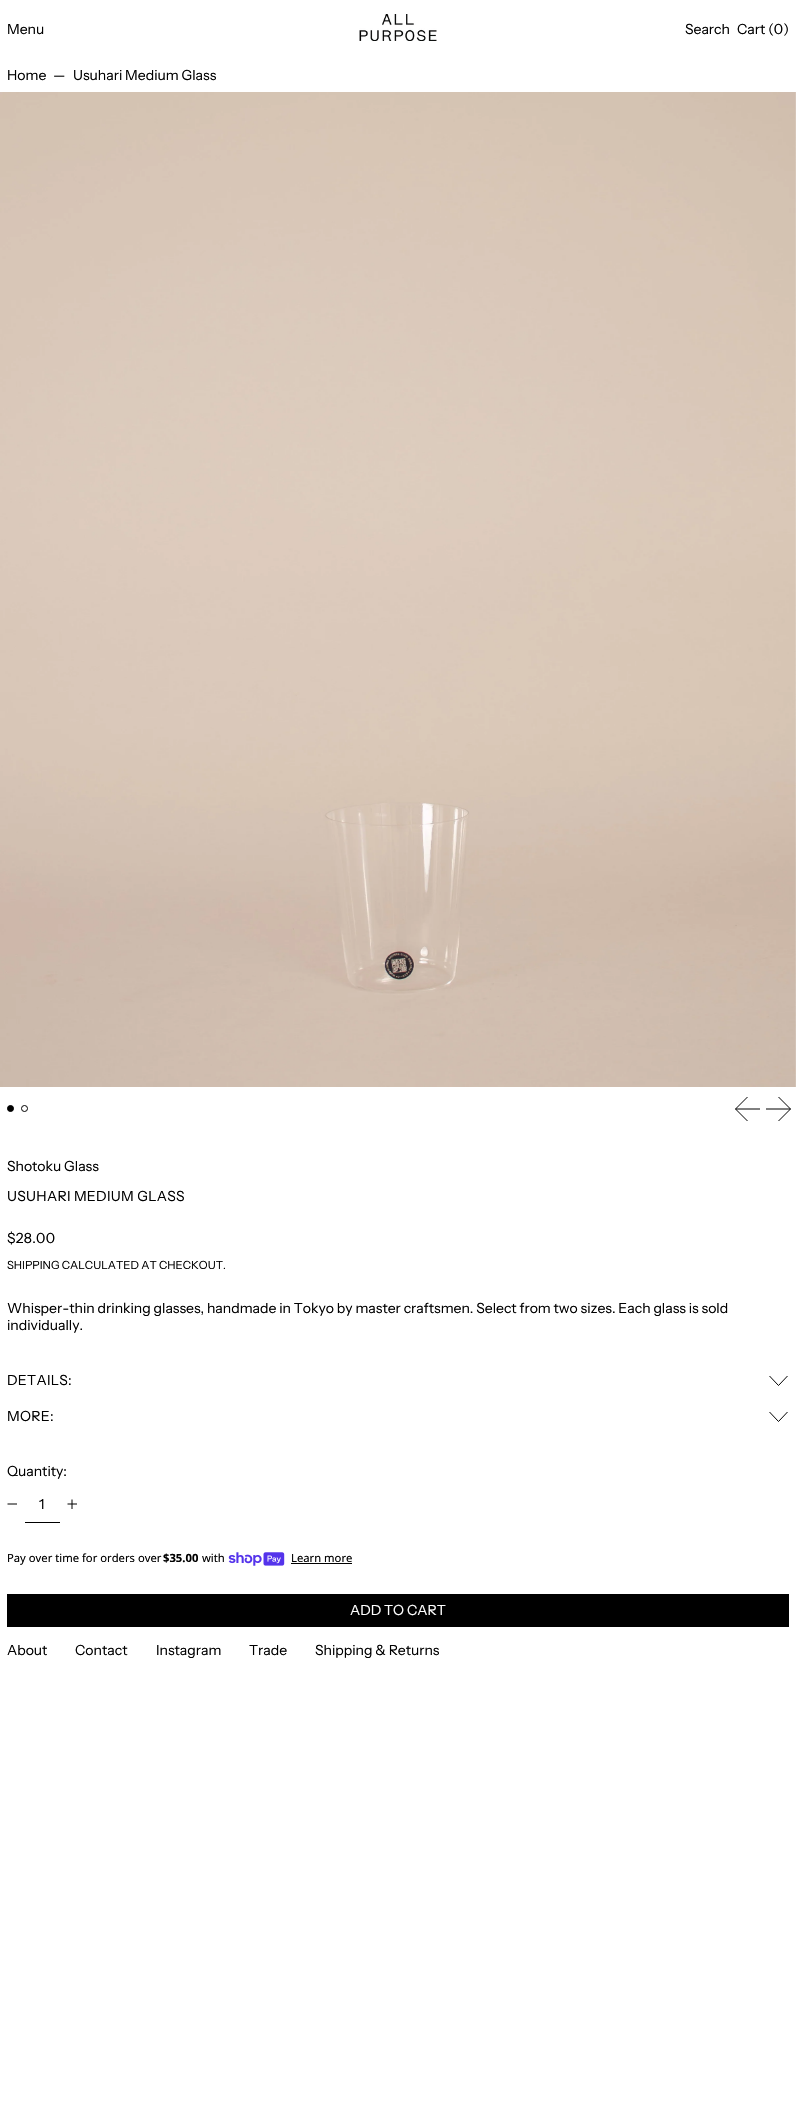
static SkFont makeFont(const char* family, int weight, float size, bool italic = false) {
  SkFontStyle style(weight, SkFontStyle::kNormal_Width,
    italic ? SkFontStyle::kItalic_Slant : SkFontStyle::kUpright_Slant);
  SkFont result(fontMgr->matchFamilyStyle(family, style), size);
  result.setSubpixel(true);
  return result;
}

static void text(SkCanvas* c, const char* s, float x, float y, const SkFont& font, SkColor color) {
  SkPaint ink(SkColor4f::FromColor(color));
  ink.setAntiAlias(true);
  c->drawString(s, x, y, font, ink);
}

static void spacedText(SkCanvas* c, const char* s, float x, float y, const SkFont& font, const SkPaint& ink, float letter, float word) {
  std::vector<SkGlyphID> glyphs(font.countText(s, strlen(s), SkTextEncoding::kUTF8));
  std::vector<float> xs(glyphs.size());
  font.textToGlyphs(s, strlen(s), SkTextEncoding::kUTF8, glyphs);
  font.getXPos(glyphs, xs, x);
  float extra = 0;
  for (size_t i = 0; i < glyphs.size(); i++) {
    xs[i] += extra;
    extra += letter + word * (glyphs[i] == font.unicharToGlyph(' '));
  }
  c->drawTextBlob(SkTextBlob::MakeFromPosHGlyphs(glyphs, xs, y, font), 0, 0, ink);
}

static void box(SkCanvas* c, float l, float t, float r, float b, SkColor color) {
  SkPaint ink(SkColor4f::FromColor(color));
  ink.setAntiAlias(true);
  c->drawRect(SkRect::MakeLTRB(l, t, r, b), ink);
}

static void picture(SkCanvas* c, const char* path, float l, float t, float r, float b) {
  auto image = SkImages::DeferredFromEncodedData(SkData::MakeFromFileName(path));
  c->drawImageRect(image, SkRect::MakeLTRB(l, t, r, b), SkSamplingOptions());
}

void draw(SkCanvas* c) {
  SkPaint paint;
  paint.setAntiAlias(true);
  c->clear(0xffffffff);
  SkFont face1 = makeFont("Instrument Sans", 400, 14);
  text(c, "Menu", 7, 34, face1, 0xff000000);
  picture(c, "img_01.png", 359, 14, 437, 41);
  text(c, "Search", 685, 34, face1, 0xff000000);
  text(c, "Cart (0)", 737, 34, face1, 0xff000000);
  text(c, "Home", 7, 80, face1, 0xff000000);
  text(c, "—", 53, 80, face1, 0xff000000);
  text(c, "Usuhari Medium Glass", 73, 80, face1, 0xff000000);
  picture(c, "img_02.png", 0, 92, 796, 1087);
  paint.setColor(0xff000000);
  c->drawCircle(10.5f, 1108.5f, 3, paint);
  paint.setStyle(SkPaint::kStroke_Style);
  paint.setStrokeWidth(1);
  c->drawCircle(10.5f, 1108.5f, 3, paint);
  c->drawCircle(24.5f, 1108.5f, 3, paint);
  c->drawPath(SkPathBuilder().moveTo(760, 1109).lineTo(735.5f, 1109).moveTo(747.5f, 1121).lineTo(735.5f, 1109).lineTo(747.5f, 1097).moveTo(766, 1109).lineTo(790.5f, 1109).moveTo(778.5f, 1121).lineTo(790.5f, 1109).lineTo(778.5f, 1097).detach(), paint);
  text(c, "Shotoku Glass", 7, 1171, face1, 0xff000000);
  paint.setStyle(SkPaint::kFill_Style);
  spacedText(c, "USUHARI MEDIUM GLASS", 7, 1201, face1, paint, 0.3f, 0);
  spacedText(c, "$28.00", 7, 1243, face1, paint, 0.3f, 0);
  SkFont face2 = makeFont("Instrument Sans", 400, 11.25f);
  text(c, "SHIPPING CALCULATED AT CHECKOUT.", 7, 1269, face2, 0xff000000);
  text(c, "Whisper-thin drinking glasses, handmade in Tokyo by master craftsmen. Select from two sizes. Each glass is sold", 7, 1313, face1, 0xff000000);
  text(c, "individually.", 7, 1330, face1, 0xff000000);
  spacedText(c, "DETAILS:", 7, 1385, face1, paint, 0.3f, 0);
  paint.setStyle(SkPaint::kStroke_Style);
  c->drawPath(SkPathBuilder().moveTo(769.5f, 1376).lineTo(778.5f, 1385.5f).lineTo(787.5f, 1376).moveTo(769.5f, 1412).lineTo(778.5f, 1421.5f).lineTo(787.5f, 1412).detach(), paint);
  paint.setStyle(SkPaint::kFill_Style);
  spacedText(c, "MORE:", 7, 1421, face1, paint, 0.3f, 0);
  text(c, "Quantity:", 7, 1476, face1, 0xff000000);
  paint.setStyle(SkPaint::kStroke_Style);
  c->drawPath(SkPathBuilder().moveTo(7.5f, 1504).lineTo(17, 1504).detach(), paint);
  box(c, 25, 1522, 60, 1523, 0xff000000);
  text(c, "1", 39, 1509, face1, 0xff000000);
  c->drawPath(SkPathBuilder().moveTo(72, 1499.5f).lineTo(72, 1509).moveTo(67.5f, 1504).lineTo(77, 1504).detach(), paint);
  SkFont face3 = makeFont("Noto Sans", 400, 11.25f);
  text(c, "Pay over time for orders over", 7, 1562, face3, 0xff000000);
  SkFont face4 = makeFont("Noto Sans", 700, 11.25f);
  text(c, "$35.00", 163, 1562, face4, 0xff000000);
  text(c, "with", 202, 1562, face3, 0xff000000);
  picture(c, "img_03.png", 228, 1552, 285, 1566);
  text(c, "Learn more", 291, 1562, face3, 0xff000000);
  box(c, 291, 1563, 352, 1564, 0xff000000);
  box(c, 7, 1594, 789, 1627, 0xff000000);
  text(c, "ADD TO CART", 350, 1615, face1, 0xffffffff);
  text(c, "About", 7, 1655, face1, 0xff000000);
  text(c, "Contact", 75, 1655, face1, 0xff000000);
  text(c, "Instagram", 156, 1655, face1, 0xff000000);
  text(c, "Trade", 249, 1655, face1, 0xff000000);
  text(c, "Shipping & Returns", 315, 1655, face1, 0xff000000);
}
